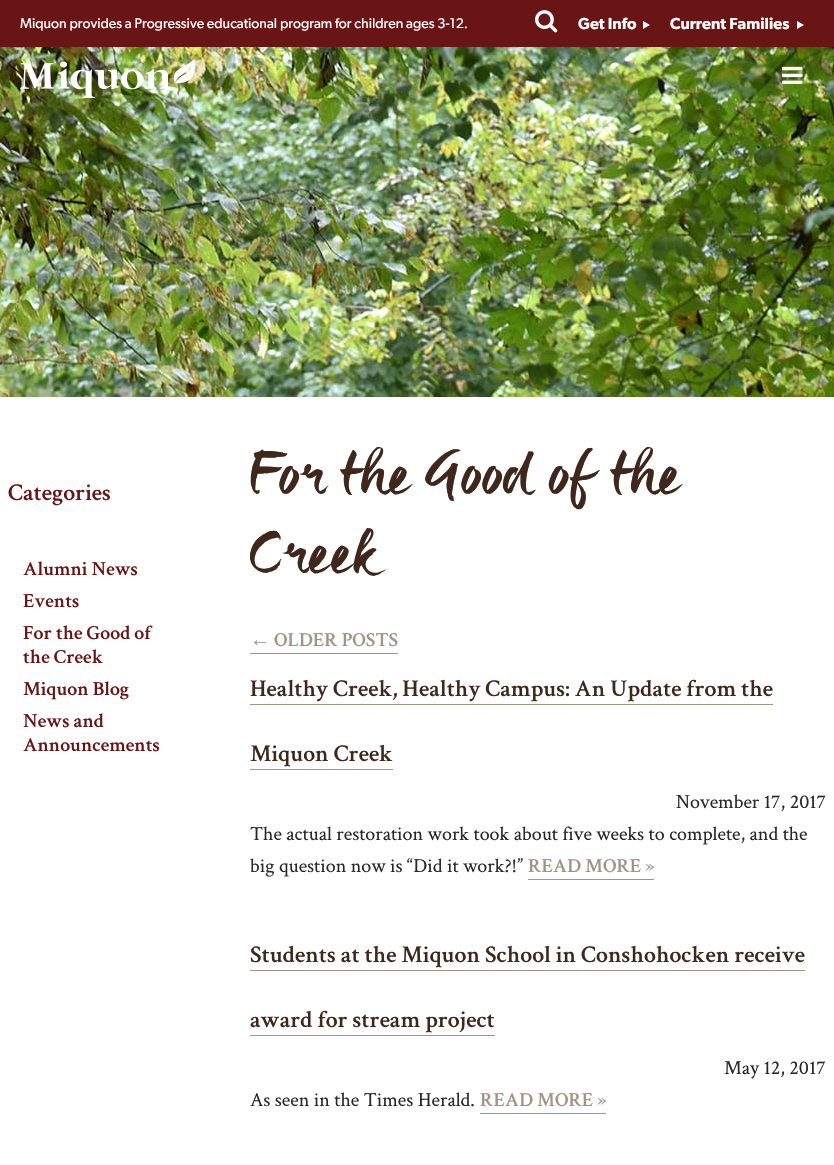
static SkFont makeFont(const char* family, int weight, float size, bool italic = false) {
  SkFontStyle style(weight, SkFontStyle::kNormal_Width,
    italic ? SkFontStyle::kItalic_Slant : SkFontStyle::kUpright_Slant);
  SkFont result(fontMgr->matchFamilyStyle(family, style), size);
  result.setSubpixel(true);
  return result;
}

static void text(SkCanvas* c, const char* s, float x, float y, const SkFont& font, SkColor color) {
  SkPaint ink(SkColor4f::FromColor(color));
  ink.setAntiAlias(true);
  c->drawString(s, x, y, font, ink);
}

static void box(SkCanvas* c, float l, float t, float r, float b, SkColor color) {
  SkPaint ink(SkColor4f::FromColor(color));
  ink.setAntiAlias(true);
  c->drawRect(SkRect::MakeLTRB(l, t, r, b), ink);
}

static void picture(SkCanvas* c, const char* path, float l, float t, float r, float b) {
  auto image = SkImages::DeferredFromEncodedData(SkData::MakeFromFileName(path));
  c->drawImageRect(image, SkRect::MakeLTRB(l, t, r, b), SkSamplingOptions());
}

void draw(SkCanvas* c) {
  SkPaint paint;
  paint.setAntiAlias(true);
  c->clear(0xffffffff);
  box(c, 0, 0, 834, 47, 0xff691515);
  SkFont face1 = makeFont("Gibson", 400, 14);
  text(c, "Miquon provides a Progressive educational program for children ages 3-12.", 20, 28, face1, 0xffffffff);
  picture(c, "img_01.png", 535, 10, 558, 33);
  SkFont face2 = makeFont("Gibson", 600, 16);
  text(c, "Get Info", 578, 29, face2, 0xffffffff);
  paint.setColor(0xffffffff);
  c->drawPath(SkPathBuilder().moveTo(643, 29).lineTo(643, 21).lineTo(650, 25).close().detach(), paint);
  text(c, "Current Families", 670, 29, face2, 0xffffffff);
  c->drawPath(SkPathBuilder().moveTo(797, 29).lineTo(797, 21).lineTo(804, 25).close().detach(), paint);
  picture(c, "img_02.png", 0, 47, 834, 397);
  picture(c, "img_03.png", 20, 59, 195, 98);
  picture(c, "img_04.png", 782, 66, 803, 84);
  SkFont face3 = makeFont("Crimson Text", 600, 24);
  text(c, "Categories", 8, 500, face3, 0xff691515);
  SkFont face4 = makeFont("Crimson Text", 600, 20);
  text(c, "Alumni News", 23, 575, face4, 0xff691515);
  text(c, "Events", 23, 607, face4, 0xff691515);
  text(c, "For the Good of", 23, 639, face4, 0xff691515);
  text(c, "the Creek", 23, 663, face4, 0xff691515);
  text(c, "Miquon Blog", 23, 695, face4, 0xff691515);
  text(c, "News and", 23, 727, face4, 0xff691515);
  text(c, "Announcements", 23, 751, face4, 0xff691515);
  SkFont face5 = makeFont("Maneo", 400, 72);
  text(c, "For the Good of the", 250, 493, face5, 0xff3f271c);
  text(c, "Creek", 250, 572, face5, 0xff3f271c);
  SkFont face6 = makeFont("Liberation Serif", 700, 20);
  text(c, "←", 250, 646, face6, 0xffa39382);
  box(c, 250, 653, 398, 654, 0xffa39382);
  text(c, "OLDER POSTS", 274, 646, face4, 0xffa39382);
  text(c, "Healthy Creek, Healthy Campus: An Update from the", 250, 696, face3, 0xff3f271c);
  box(c, 250, 704, 773, 705, 0xffa39382);
  text(c, "Miquon Creek", 250, 761, face3, 0xff3f271c);
  box(c, 250, 769, 393, 770, 0xffa39382);
  SkFont face7 = makeFont("Crimson Text", 400, 20);
  text(c, "November 17, 2017", 676, 808, face7, 0xff262729);
  text(c, "The actual restoration work took about five weeks to complete, and the", 250, 840, face7, 0xff262729);
  text(c, "big question now is “Did it work?!”", 250, 872, face7, 0xff262729);
  text(c, "READ MORE »", 528, 872, face4, 0xffa39382);
  box(c, 528, 879, 654, 880, 0xffa39382);
  text(c, "Students at the Miquon School in Conshohocken receive", 250, 962, face3, 0xff3f271c);
  box(c, 250, 970, 805, 971, 0xffa39382);
  text(c, "award for stream project", 250, 1027, face3, 0xff3f271c);
  box(c, 250, 1035, 495, 1036, 0xffa39382);
  text(c, "May 12, 2017", 724, 1074, face7, 0xff262729);
  text(c, "As seen in the Times Herald.", 250, 1106, face7, 0xff262729);
  text(c, "READ MORE »", 480, 1106, face4, 0xffa39382);
  box(c, 480, 1113, 606, 1114, 0xffa39382);
}
